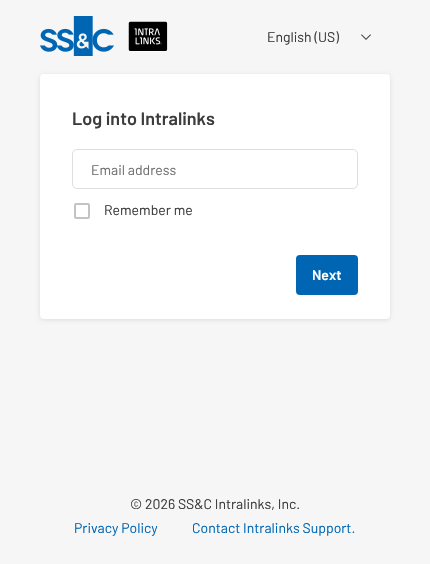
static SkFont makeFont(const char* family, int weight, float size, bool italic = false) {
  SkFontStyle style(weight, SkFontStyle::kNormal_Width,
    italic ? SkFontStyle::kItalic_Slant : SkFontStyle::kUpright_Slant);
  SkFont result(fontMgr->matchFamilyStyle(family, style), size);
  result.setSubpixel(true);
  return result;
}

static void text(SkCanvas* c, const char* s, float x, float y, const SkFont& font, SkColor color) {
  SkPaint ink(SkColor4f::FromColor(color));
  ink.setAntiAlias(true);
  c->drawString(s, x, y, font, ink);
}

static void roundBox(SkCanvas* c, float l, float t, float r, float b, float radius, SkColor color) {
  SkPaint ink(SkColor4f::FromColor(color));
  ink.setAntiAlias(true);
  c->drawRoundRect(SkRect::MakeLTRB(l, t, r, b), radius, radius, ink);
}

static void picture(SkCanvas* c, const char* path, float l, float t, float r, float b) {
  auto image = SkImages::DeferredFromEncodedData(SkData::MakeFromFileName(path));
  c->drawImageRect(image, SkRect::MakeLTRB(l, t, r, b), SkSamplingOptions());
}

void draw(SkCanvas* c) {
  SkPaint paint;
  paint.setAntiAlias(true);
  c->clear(0xfff6f6f6);
  picture(c, "img_01.png", 40, 16, 168, 56);
  SkFont face1 = makeFont("Barlow", 400, 14);
  text(c, "English (US)", 267, 42, face1, 0xff3c3c3c);
  picture(c, "img_02.png", 361, 34, 371, 40);
  paint.setColor(0x1a000000);
  paint.setMaskFilter(SkMaskFilter::MakeBlur(kNormal_SkBlurStyle, 2));
  c->drawRoundRect(SkRect::MakeLTRB(40, 75, 390, 320), 4, 4, paint);
  paint.setMaskFilter(nullptr);
  roundBox(c, 40, 74, 390, 319, 4, 0xffffffff);
  SkFont face2 = makeFont("Barlow", 600, 18);
  text(c, "Log into Intralinks", 72, 125, face2, 0xff3c3c3c);
  paint.setStyle(SkPaint::kStroke_Style);
  paint.setStrokeWidth(1);
  paint.setColor(0xffdedede);
  c->drawRoundRect(SkRect::MakeLTRB(72.5f, 149.5f, 357.5f, 188.5f), 4.5f, 4.5f, paint);
  text(c, "Email address", 91, 175, face1, 0xff6f6f6f);
  paint.setStrokeWidth(2);
  paint.setColor(0xffc3c3c3);
  c->drawRoundRect(SkRect::MakeLTRB(75, 204, 89, 218), 1, 1, paint);
  text(c, "Remember me", 104, 215, face1, 0xff3c3c3c);
  roundBox(c, 296, 255, 358, 295, 4, 0xff0066b4);
  SkFont face3 = makeFont("Barlow", 600, 14);
  text(c, "Next", 312, 280, face3, 0xffffffff);
  text(c, "© 2026 SS&C Intralinks, Inc.", 130, 509, face1, 0xff3c3c3c);
  text(c, "Privacy Policy", 74, 533, face1, 0xff0066b4);
  text(c, "Contact Intralinks Support.", 192, 533, face1, 0xff0066b4);
}
